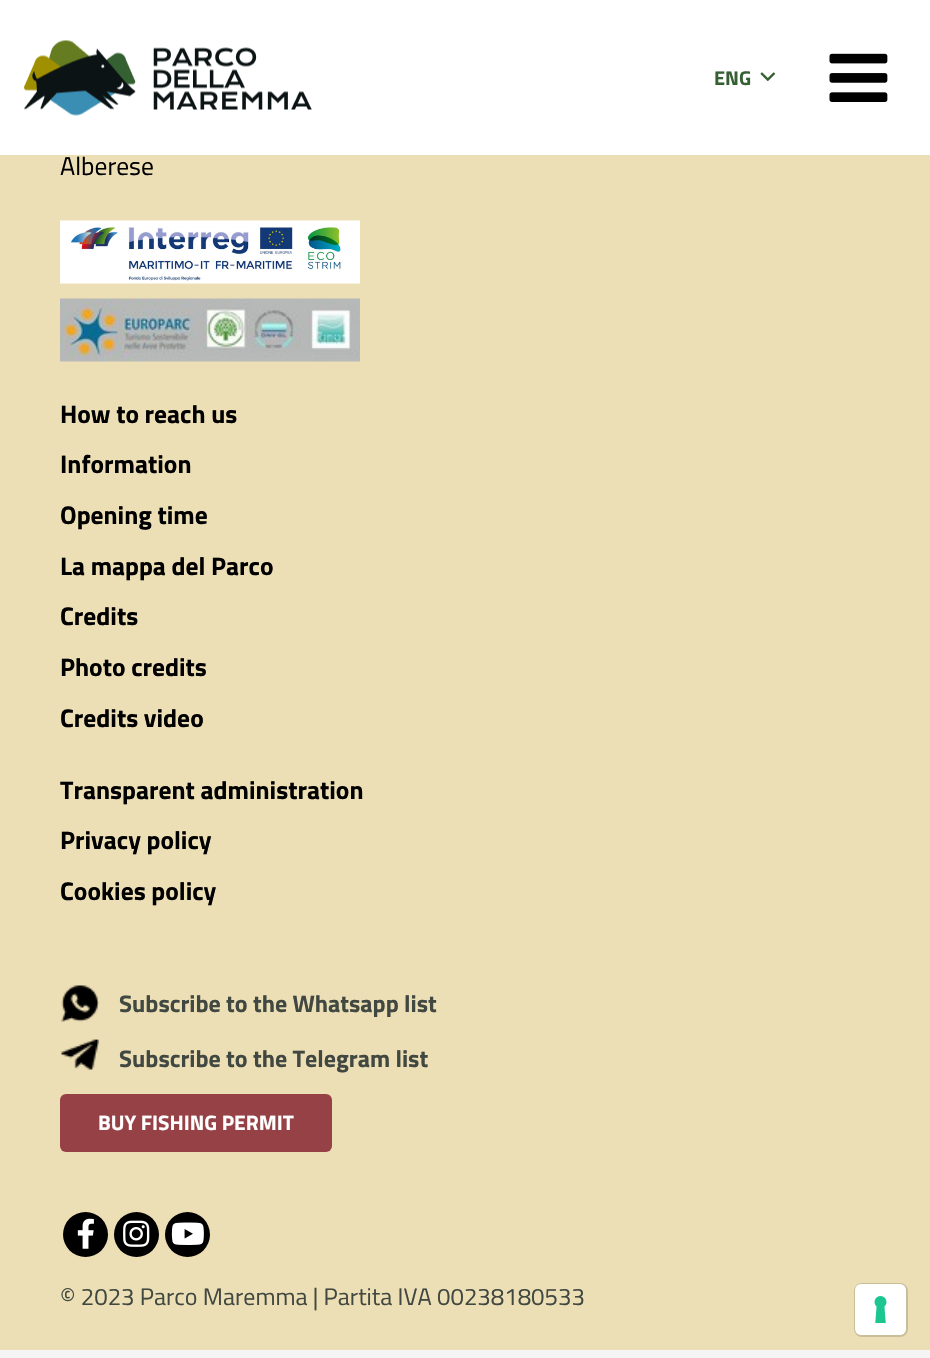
static SkFont makeFont(const char* family, int weight, float size, bool italic = false) {
  SkFontStyle style(weight, SkFontStyle::kNormal_Width,
    italic ? SkFontStyle::kItalic_Slant : SkFontStyle::kUpright_Slant);
  SkFont result(fontMgr->matchFamilyStyle(family, style), size);
  result.setSubpixel(true);
  return result;
}

static void text(SkCanvas* c, const char* s, float x, float y, const SkFont& font, SkColor color) {
  SkPaint ink(SkColor4f::FromColor(color));
  ink.setAntiAlias(true);
  c->drawString(s, x, y, font, ink);
}

static void box(SkCanvas* c, float l, float t, float r, float b, SkColor color) {
  SkPaint ink(SkColor4f::FromColor(color));
  ink.setAntiAlias(true);
  c->drawRect(SkRect::MakeLTRB(l, t, r, b), ink);
}

static void roundBox(SkCanvas* c, float l, float t, float r, float b, float radius, SkColor color) {
  SkPaint ink(SkColor4f::FromColor(color));
  ink.setAntiAlias(true);
  c->drawRoundRect(SkRect::MakeLTRB(l, t, r, b), radius, radius, ink);
}

static void picture(SkCanvas* c, const char* path, float l, float t, float r, float b) {
  auto image = SkImages::DeferredFromEncodedData(SkData::MakeFromFileName(path));
  c->drawImageRect(image, SkRect::MakeLTRB(l, t, r, b), SkSamplingOptions());
}

void draw(SkCanvas* c) {
  SkPaint paint;
  paint.setAntiAlias(true);
  c->clear(0xfff5f5f5);
  box(c, 0, 0, 930, 155, 0xffffffff);
  picture(c, "img_01.png", 24, 40, 312, 116);
  SkFont face1 = makeFont("Titillium Web", 700, 20);
  text(c, "ENG", 714, 85, face1, 0xff346032);
  picture(c, "img_02.png", 760, 72, 776, 82);
  picture(c, "img_03.png", 829, 53, 888, 102);
  box(c, 0, 155, 930, 1350, 0xffeddfb5);
  SkFont face2 = makeFont("Titillium Web", 400, 25.5f);
  text(c, "Alberese", 60, 175, face2, 0xff000000);
  picture(c, "img_04.png", 60, 220, 360, 284);
  picture(c, "img_05.png", 60, 298, 360, 362);
  SkFont face3 = makeFont("Titillium Web", 700, 25.5f);
  text(c, "How to reach us", 60, 423, face3, 0xff000000);
  text(c, "Information", 60, 473, face3, 0xff000000);
  text(c, "Opening time", 60, 524, face3, 0xff000000);
  text(c, "La mappa del Parco", 60, 575, face3, 0xff000000);
  text(c, "Credits", 60, 625, face3, 0xff000000);
  text(c, "Photo credits", 60, 676, face3, 0xff000000);
  text(c, "Credits video", 60, 727, face3, 0xff000000);
  text(c, "Transparent administration", 60, 799, face3, 0xff000000);
  text(c, "Privacy policy", 60, 849, face3, 0xff000000);
  text(c, "Cookies policy", 60, 900, face3, 0xff000000);
  picture(c, "img_06.png", 61, 985, 99, 1022);
  SkFont face4 = makeFont("Titillium Web", 700, 24);
  text(c, "Subscribe to the Whatsapp list", 119, 1012, face4, 0xff414841);
  picture(c, "img_07.png", 61, 1039, 99, 1070);
  text(c, "Subscribe to the Telegram list", 119, 1067, face4, 0xff414841);
  roundBox(c, 60, 1094, 332, 1152, 6, 0xff964146);
  SkFont face5 = makeFont("Titillium Web", 700, 21);
  text(c, "BUY FISHING PERMIT", 98, 1130, face5, 0xffffffff);
  paint.setColor(0xff000000);
  c->drawCircle(85.5f, 1234.5f, 22.5f, paint);
  picture(c, "img_08.png", 77, 1218, 94, 1249);
  c->drawCircle(136.5f, 1234.5f, 22.5f, paint);
  picture(c, "img_09.png", 123, 1220, 150, 1247);
  c->drawCircle(187.5f, 1234.5f, 22.5f, paint);
  picture(c, "img_10.png", 171, 1222, 204, 1245);
  SkFont face6 = makeFont("Titillium Web", 400, 24);
  text(c, "© 2023 Parco Maremma | Partita IVA 00238180533", 60, 1305, face6, 0xff414841);
  paint.setStyle(SkPaint::kStroke_Style);
  paint.setStrokeWidth(2);
  paint.setColor(0xffc9be9a);
  c->drawRoundRect(SkRect::MakeLTRB(855, 1284, 907, 1336), 7, 7, paint);
  roundBox(c, 855, 1284, 906, 1335, 6, 0xffffffff);
  picture(c, "img_11.png", 874, 1296, 887, 1323);
}
